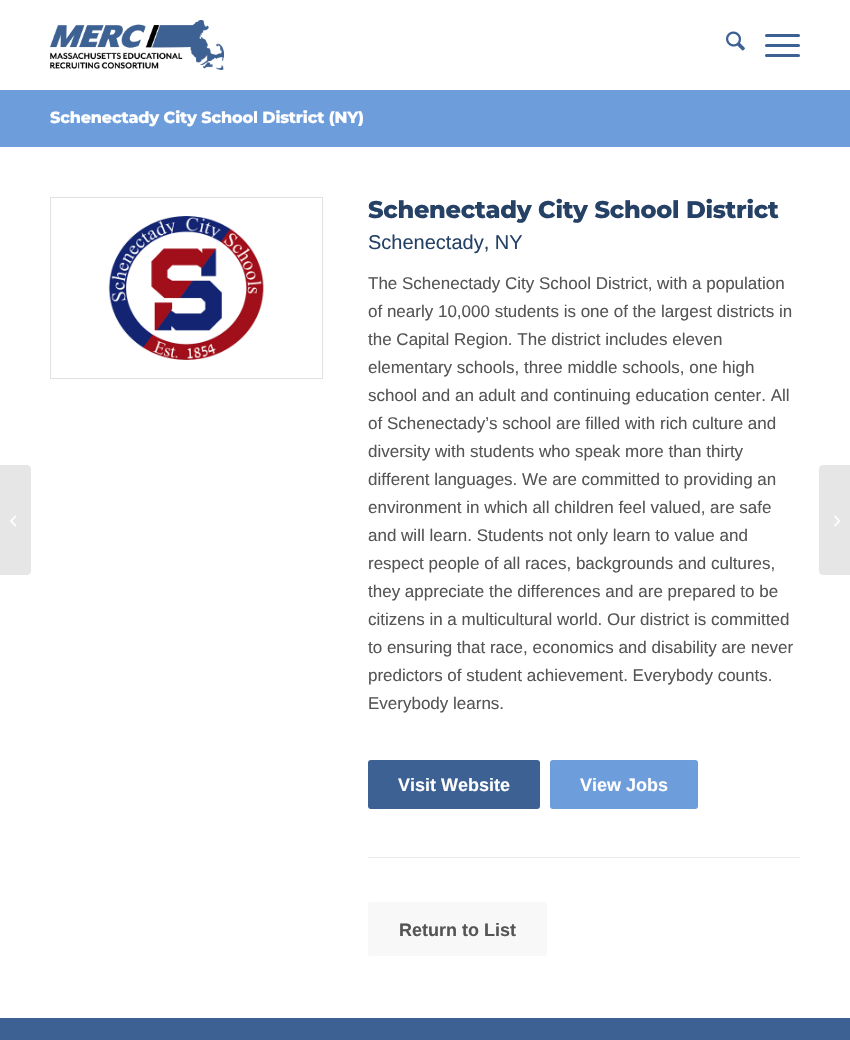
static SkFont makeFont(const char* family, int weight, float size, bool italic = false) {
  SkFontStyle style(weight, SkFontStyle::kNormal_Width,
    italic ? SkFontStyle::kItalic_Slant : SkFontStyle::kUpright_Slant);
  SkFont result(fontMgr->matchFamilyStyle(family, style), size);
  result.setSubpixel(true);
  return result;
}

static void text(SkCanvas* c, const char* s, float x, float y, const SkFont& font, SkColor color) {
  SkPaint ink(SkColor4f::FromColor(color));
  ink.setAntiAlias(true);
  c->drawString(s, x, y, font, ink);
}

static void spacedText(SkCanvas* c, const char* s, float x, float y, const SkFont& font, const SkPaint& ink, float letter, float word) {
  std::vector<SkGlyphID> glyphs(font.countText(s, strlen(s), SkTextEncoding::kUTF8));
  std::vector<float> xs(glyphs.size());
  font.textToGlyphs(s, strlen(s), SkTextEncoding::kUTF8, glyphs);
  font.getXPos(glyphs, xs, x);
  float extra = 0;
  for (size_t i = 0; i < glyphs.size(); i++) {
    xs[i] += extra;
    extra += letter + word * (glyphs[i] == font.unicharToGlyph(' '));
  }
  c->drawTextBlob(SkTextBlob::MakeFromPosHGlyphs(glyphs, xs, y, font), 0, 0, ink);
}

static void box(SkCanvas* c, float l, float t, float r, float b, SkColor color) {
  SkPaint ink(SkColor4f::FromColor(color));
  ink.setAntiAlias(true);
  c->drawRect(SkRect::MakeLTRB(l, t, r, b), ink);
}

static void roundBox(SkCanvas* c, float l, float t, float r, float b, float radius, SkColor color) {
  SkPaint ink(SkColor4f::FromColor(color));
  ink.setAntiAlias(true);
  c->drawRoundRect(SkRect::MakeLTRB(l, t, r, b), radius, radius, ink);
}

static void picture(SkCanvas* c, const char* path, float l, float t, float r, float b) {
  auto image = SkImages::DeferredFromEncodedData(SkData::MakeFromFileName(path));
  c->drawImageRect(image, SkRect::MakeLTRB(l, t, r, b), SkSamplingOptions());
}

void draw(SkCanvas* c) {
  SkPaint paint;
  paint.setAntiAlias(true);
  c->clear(0xffffffff);
  picture(c, "img_01.png", 50, 20, 224, 70);
  picture(c, "img_02.png", 726, 31, 745, 51);
  roundBox(c, 765, 44, 800, 47, 1.5f, 0xff3c6192);
  roundBox(c, 765, 34, 800, 37, 1.5f, 0xff3c6192);
  roundBox(c, 765, 54, 800, 57, 1.5f, 0xff3c6192);
  paint.setColor(0xffe6e6e6);
  c->drawPath(SkPathBuilder().moveTo(0, 465).lineTo(27, 465).cubicTo(29, 465, 31, 467, 31, 469).lineTo(31, 571).cubicTo(31, 573, 29, 575, 27, 575).lineTo(0, 575).close().detach(), paint);
  picture(c, "img_03.png", 10, 515, 16, 527);
  box(c, 0, 90, 850, 147, 0xff6d9ddb);
  SkFont face1 = makeFont("Montserrat", 800, 16);
  paint.setColor(0xffffffff);
  spacedText(c, "Schenectady City School District (NY)", 50, 123, face1, paint, -0.15f, 0);
  paint.setStyle(SkPaint::kStroke_Style);
  paint.setStrokeWidth(1);
  paint.setColor(0xffe1e1e1);
  c->drawRect(SkRect::MakeLTRB(50.5f, 197.5f, 322.5f, 378.5f), paint);
  picture(c, "img_04.png", 108, 216, 264, 360);
  SkFont face2 = makeFont("Montserrat", 800, 24);
  paint.setStyle(SkPaint::kFill_Style);
  paint.setColor(0xff254166);
  spacedText(c, "Schenectady City School District", 368, 218, face2, paint, -0.25f, 0);
  SkFont face3 = makeFont("Liberation Sans", 400, 20);
  text(c, "Schenectady, NY", 368, 249, face3, 0xff254166);
  SkFont face4 = makeFont("Liberation Sans", 400, 17);
  text(c, "The Schenectady City School District, with a population", 368, 289, face4, 0xff555555);
  text(c, "of nearly 10,000 students is one of the largest districts in", 368, 317, face4, 0xff555555);
  text(c, "the Capital Region. The district includes eleven", 368, 345, face4, 0xff555555);
  text(c, "elementary schools, three middle schools, one high", 368, 373, face4, 0xff555555);
  text(c, "school and an adult and continuing education center. All", 368, 401, face4, 0xff555555);
  text(c, "of Schenectady’s school are filled with rich culture and", 368, 429, face4, 0xff555555);
  text(c, "diversity with students who speak more than thirty", 368, 457, face4, 0xff555555);
  text(c, "different languages. We are committed to providing an", 368, 485, face4, 0xff555555);
  text(c, "environment in which all children feel valued, are safe", 368, 513, face4, 0xff555555);
  text(c, "and will learn. Students not only learn to value and", 368, 541, face4, 0xff555555);
  text(c, "respect people of all races, backgrounds and cultures,", 368, 569, face4, 0xff555555);
  text(c, "they appreciate the differences and are prepared to be", 368, 597, face4, 0xff555555);
  text(c, "citizens in a multicultural world. Our district is committed", 368, 625, face4, 0xff555555);
  text(c, "to ensuring that race, economics and disability are never", 368, 653, face4, 0xff555555);
  text(c, "predictors of student achievement. Everybody counts.", 368, 681, face4, 0xff555555);
  text(c, "Everybody learns.", 368, 709, face4, 0xff555555);
  roundBox(c, 368, 760, 540, 809, 3, 0xff3c6192);
  SkFont face5 = makeFont("Liberation Sans", 700, 18);
  text(c, "Visit Website", 398, 791, face5, 0xffffffff);
  roundBox(c, 550, 760, 698, 809, 3, 0xff6d9ddb);
  text(c, "View Jobs", 580, 791, face5, 0xffffffff);
  box(c, 368, 857, 800, 858, 0xffebebeb);
  roundBox(c, 368, 902, 547, 956, 3, 0xfff8f8f8);
  text(c, "Return to List", 399, 936, face5, 0xff555555);
  box(c, 0, 1018, 850, 1040, 0xff3c6192);
  paint.setColor(0xffe6e6e6);
  c->drawPath(SkPathBuilder().moveTo(823, 465).lineTo(850, 465).lineTo(850, 575).lineTo(823, 575).cubicTo(821, 575, 819, 573, 819, 571).lineTo(819, 469).cubicTo(819, 467, 821, 465, 823, 465).close().detach(), paint);
  picture(c, "img_05.png", 834, 515, 840, 527);
}
